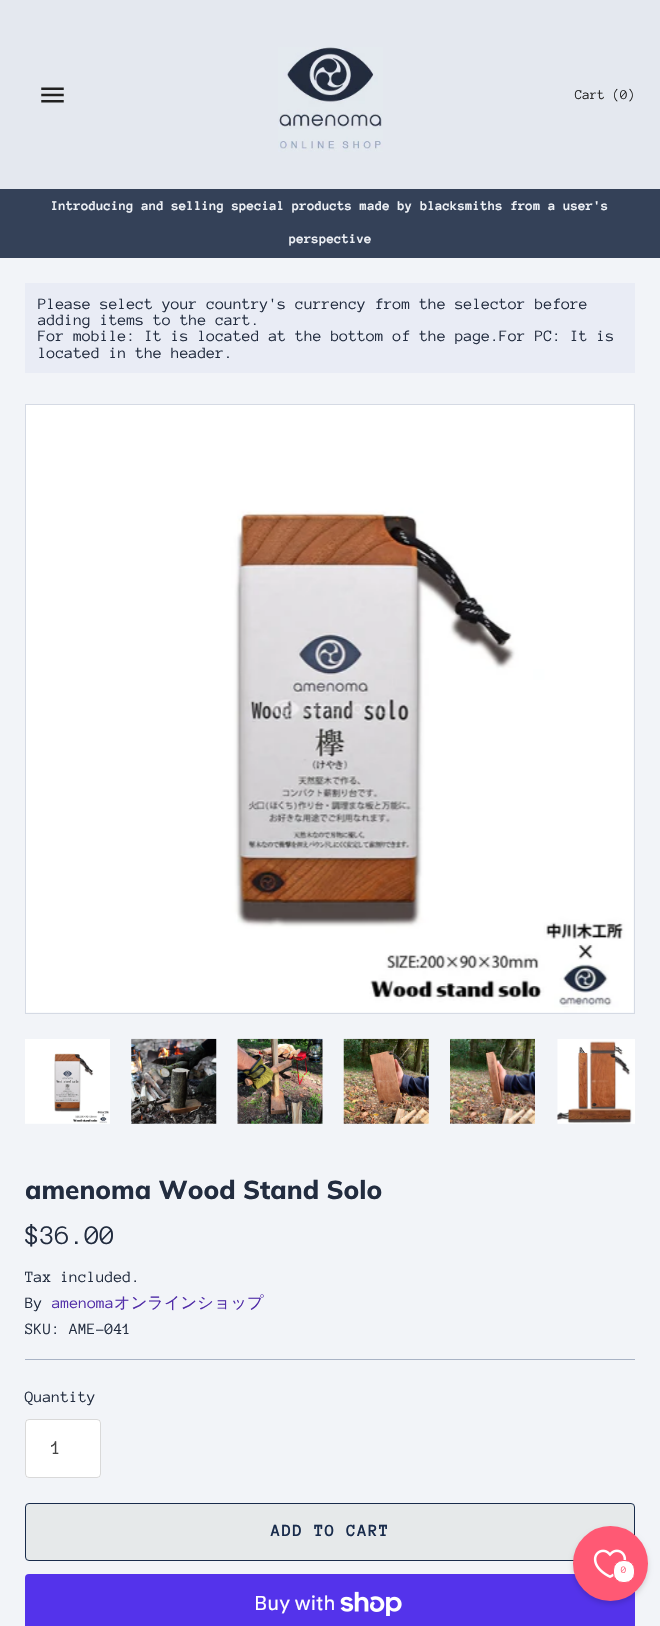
static SkFont makeFont(const char* family, int weight, float size, bool italic = false) {
  SkFontStyle style(weight, SkFontStyle::kNormal_Width,
    italic ? SkFontStyle::kItalic_Slant : SkFontStyle::kUpright_Slant);
  SkFont result(fontMgr->matchFamilyStyle(family, style), size);
  result.setSubpixel(true);
  return result;
}

static void text(SkCanvas* c, const char* s, float x, float y, const SkFont& font, SkColor color) {
  SkPaint ink(SkColor4f::FromColor(color));
  ink.setAntiAlias(true);
  c->drawString(s, x, y, font, ink);
}

static void spacedText(SkCanvas* c, const char* s, float x, float y, const SkFont& font, const SkPaint& ink, float letter, float word) {
  std::vector<SkGlyphID> glyphs(font.countText(s, strlen(s), SkTextEncoding::kUTF8));
  std::vector<float> xs(glyphs.size());
  font.textToGlyphs(s, strlen(s), SkTextEncoding::kUTF8, glyphs);
  font.getXPos(glyphs, xs, x);
  float extra = 0;
  for (size_t i = 0; i < glyphs.size(); i++) {
    xs[i] += extra;
    extra += letter + word * (glyphs[i] == font.unicharToGlyph(' '));
  }
  c->drawTextBlob(SkTextBlob::MakeFromPosHGlyphs(glyphs, xs, y, font), 0, 0, ink);
}

static void box(SkCanvas* c, float l, float t, float r, float b, SkColor color) {
  SkPaint ink(SkColor4f::FromColor(color));
  ink.setAntiAlias(true);
  c->drawRect(SkRect::MakeLTRB(l, t, r, b), ink);
}

static void roundBox(SkCanvas* c, float l, float t, float r, float b, float radius, SkColor color) {
  SkPaint ink(SkColor4f::FromColor(color));
  ink.setAntiAlias(true);
  c->drawRoundRect(SkRect::MakeLTRB(l, t, r, b), radius, radius, ink);
}

static void picture(SkCanvas* c, const char* path, float l, float t, float r, float b) {
  auto image = SkImages::DeferredFromEncodedData(SkData::MakeFromFileName(path));
  c->drawImageRect(image, SkRect::MakeLTRB(l, t, r, b), SkSamplingOptions());
}

void draw(SkCanvas* c) {
  SkPaint paint;
  paint.setAntiAlias(true);
  c->clear(0xfff2f4f8);
  box(c, 0, 0, 660, 189, 0xffe4e8ef);
  picture(c, "img_01.png", 41, 87, 64, 103);
  picture(c, "img_02.png", 278, 47, 383, 152);
  SkFont face1 = makeFont("Anonymous Pro", 400, 13.8f);
  text(c, "Cart (0)", 575, 99, face1, 0xff212121);
  box(c, 0, 189, 660, 258, 0xff344158);
  SkFont face2 = makeFont("Anonymous Pro", 700, 13.8f);
  text(c, "Introducing and selling special products made by blacksmiths from a user's", 51, 210, face2, 0xffeef1f6);
  text(c, "perspective", 289, 243, face2, 0xffeef1f6);
  box(c, 25, 283, 635, 373, 0xffe9ecf5);
  SkFont face3 = makeFont("Anonymous Pro", 400, 16.25f);
  text(c, "Please select your country's currency from the selector before", 38, 309, face3, 0xff222c3f);
  text(c, "adding items to the cart.", 38, 325, face3, 0xff222c3f);
  text(c, "For mobile: It is located at the bottom of the page.For PC: It is", 38, 341, face3, 0xff222c3f);
  text(c, "located in the header.", 38, 358, face3, 0xff222c3f);
  paint.setStyle(SkPaint::kStroke_Style);
  paint.setStrokeWidth(1);
  paint.setColor(0xffd5dae4);
  c->drawRect(SkRect::MakeLTRB(25.5f, 404.5f, 634.5f, 1013.5f), paint);
  picture(c, "img_03.png", 26, 405, 634, 1013);
  picture(c, "img_04.png", 25, 1039, 110, 1124);
  picture(c, "img_05.png", 131, 1038, 217, 1124);
  picture(c, "img_06.png", 237, 1038, 323, 1124);
  picture(c, "img_07.png", 343, 1038, 429, 1124);
  picture(c, "img_08.png", 450, 1038, 535, 1124);
  picture(c, "img_09.png", 557, 1039, 635, 1124);
  SkFont face4 = makeFont("Muli", 800, 26);
  text(c, "amenoma Wood Stand Solo", 25, 1199, face4, 0xff222c3f);
  SkFont face5 = makeFont("Anonymous Pro", 400, 27.5f);
  text(c, "$36.00", 25, 1244, face5, 0xff222c3f);
  text(c, "Tax included.", 25, 1282, face3, 0xff222c3f);
  text(c, "By", 25, 1308, face3, 0xff222c3f);
  text(c, "amenoma", 52, 1308, face3, 0xff512da8);
  SkFont face6 = makeFont("WenQuanYi Zen Hei", 500, 16.25f);
  text(c, "オンラインショップ", 114, 1308, face6, 0xff512da8);
  text(c, "SKU: AME-041", 25, 1334, face3, 0xff222c3f);
  box(c, 25, 1359, 635, 1360, 0xffa9b3c5);
  text(c, "Quantity", 25, 1402, face3, 0xff222c3f);
  roundBox(c, 25, 1419, 101, 1478, 4, 0xffffffff);
  paint.setColor(0x26000000);
  c->drawRoundRect(SkRect::MakeLTRB(25.5f, 1419.5f, 100.5f, 1477.5f), 3.5f, 3.5f, paint);
  SkFont face7 = makeFont("Anonymous Pro", 400, 20);
  text(c, "1", 51, 1454, face7, 0xff444444);
  paint.setStyle(SkPaint::kFill_Style);
  paint.setColor(0xffe6e9ea);
  c->drawRoundRect(SkRect::MakeLTRB(25.5f, 1503.5f, 634.5f, 1560.5f), 3.5f, 3.5f, paint);
  paint.setStyle(SkPaint::kStroke_Style);
  paint.setColor(0xff192c4c);
  c->drawRoundRect(SkRect::MakeLTRB(25.5f, 1503.5f, 634.5f, 1560.5f), 3.5f, 3.5f, paint);
  SkFont face8 = makeFont("Anonymous Pro", 700, 17.5f);
  paint.setStyle(SkPaint::kFill_Style);
  spacedText(c, "ADD TO CART", 271, 1536, face8, paint, 1.25f, 0);
  roundBox(c, 25, 1574, 635, 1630, 4, 0xff5433eb);
  SkFont face9 = makeFont("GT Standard", 400, 20);
  text(c, "Buy with", 254, 1610, face9, 0xffffffff);
  picture(c, "img_10.png", 340, 1591, 402, 1616);
  paint.setColor(0x26000000);
  paint.setMaskFilter(SkMaskFilter::MakeBlur(kNormal_SkBlurStyle, 2.5f));
  c->drawRoundRect(SkRect::MakeLTRB(573, 1529, 648, 1604), 37.5f, 37.5f, paint);
  paint.setMaskFilter(nullptr);
  paint.setColor(0xffff5974);
  c->drawCircle(610.5f, 1563.5f, 36, paint);
  paint.setStyle(SkPaint::kStroke_Style);
  paint.setStrokeWidth(3);
  c->drawCircle(610.5f, 1563.5f, 36, paint);
  picture(c, "img_11.png", 593, 1549, 627, 1578);
  paint.setStyle(SkPaint::kFill_Style);
  paint.setColor(0xffffffff);
  c->drawRoundRect(SkRect::MakeLTRB(613.5f, 1560.5f, 634.5f, 1582.5f), 9.5f, 9.5f, paint);
  paint.setStyle(SkPaint::kStroke_Style);
  paint.setStrokeWidth(1);
  paint.setColor(0xffff5974);
  c->drawRoundRect(SkRect::MakeLTRB(613.5f, 1560.5f, 634.5f, 1582.5f), 9.5f, 9.5f, paint);
  SkFont face10 = makeFont("Anonymous Pro", 400, 10);
  text(c, "0", 621, 1573, face10, 0xffff5974);
}
